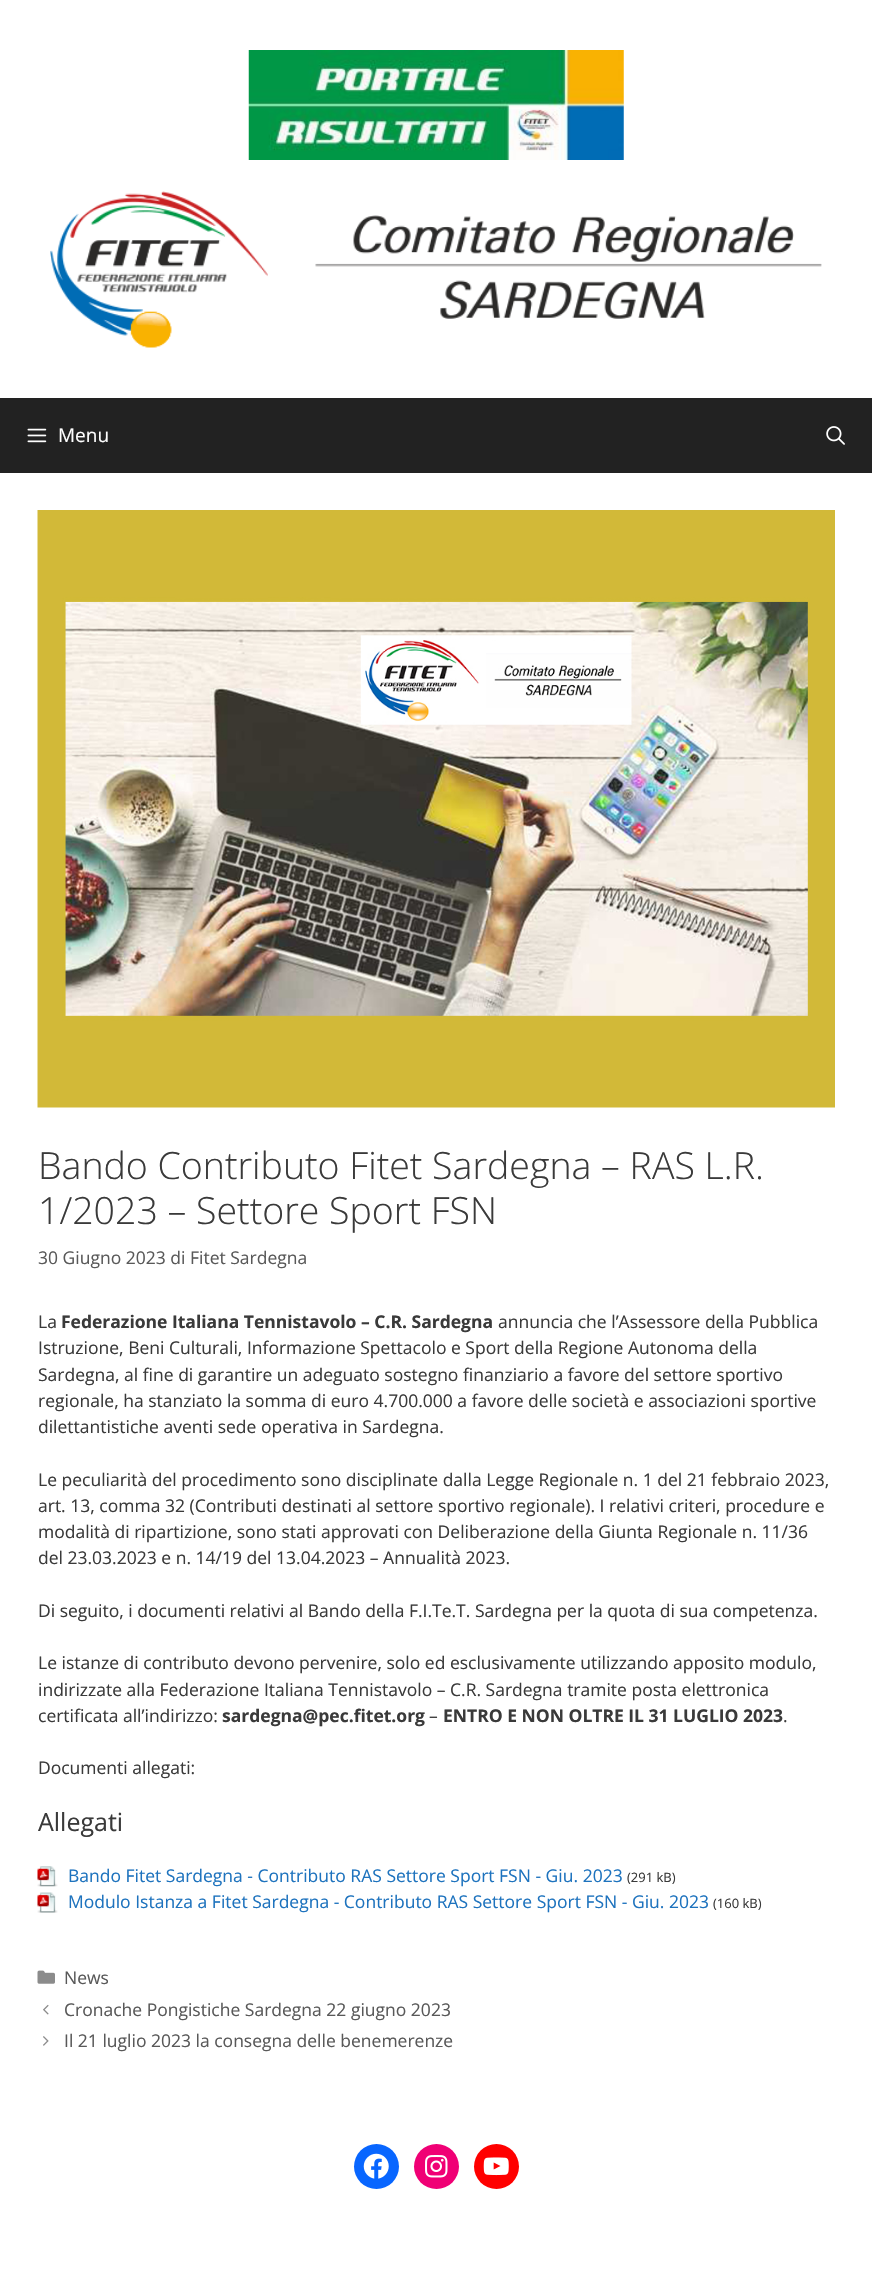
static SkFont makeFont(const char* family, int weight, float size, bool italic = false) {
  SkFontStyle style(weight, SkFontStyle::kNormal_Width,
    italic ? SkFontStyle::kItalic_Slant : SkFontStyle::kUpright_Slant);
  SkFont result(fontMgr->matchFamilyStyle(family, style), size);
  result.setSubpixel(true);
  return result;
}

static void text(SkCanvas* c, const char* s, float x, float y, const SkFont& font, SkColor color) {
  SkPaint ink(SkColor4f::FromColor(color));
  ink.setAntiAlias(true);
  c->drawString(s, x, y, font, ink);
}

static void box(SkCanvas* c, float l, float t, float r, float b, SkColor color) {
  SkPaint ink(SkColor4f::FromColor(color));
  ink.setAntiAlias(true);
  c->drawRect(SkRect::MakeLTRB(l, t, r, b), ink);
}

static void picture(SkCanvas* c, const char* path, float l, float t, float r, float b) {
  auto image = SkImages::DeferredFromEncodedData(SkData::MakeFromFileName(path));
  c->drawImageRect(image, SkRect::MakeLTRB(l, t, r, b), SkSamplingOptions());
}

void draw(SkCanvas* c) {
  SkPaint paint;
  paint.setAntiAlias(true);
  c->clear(0xff222222);
  box(c, 0, 0, 872, 398, 0xffffffff);
  picture(c, "img_01.png", 248, 50, 624, 160);
  picture(c, "img_02.png", 50, 191, 822, 348);
  picture(c, "img_03.png", 27, 428, 47, 443);
  SkFont face1 = makeFont("Open Sans", 400, 19);
  text(c, "Menu", 58, 442, face1, 0xffffffff);
  picture(c, "img_04.png", 826, 426, 845, 445);
  box(c, 0, 473, 872, 2296, 0xffffffff);
  picture(c, "img_05.png", 37, 510, 835, 1108);
  SkFont face2 = makeFont("Open Sans", 300, 37.5f);
  text(c, "Bando Contributo Fitet Sardegna – RAS L.R.", 38, 1179, face2, 0xff3a3a3a);
  text(c, "1/2023 – Settore Sport FSN", 38, 1224, face2, 0xff3a3a3a);
  SkFont face3 = makeFont("Open Sans", 400, 17.5f);
  text(c, "30 Giugno 2023 di Fitet Sardegna", 38, 1264, face3, 0xff595959);
  text(c, "La", 38, 1328, face3, 0xff3a3a3a);
  SkFont face4 = makeFont("Open Sans", 700, 17.5f);
  text(c, "Federazione Italiana Tennistavolo – C.R. Sardegna", 61, 1328, face4, 0xff3a3a3a);
  text(c, "annuncia che l’Assessore della Pubblica", 498, 1328, face3, 0xff3a3a3a);
  text(c, "Istruzione, Beni Culturali, Informazione Spettacolo e Sport della Regione Autonoma della", 38, 1354, face3, 0xff3a3a3a);
  text(c, "Sardegna, al fine di garantire un adeguato sostegno finanziario a favore del settore sportivo", 38, 1381, face3, 0xff3a3a3a);
  text(c, "regionale, ha stanziato la somma di euro 4.700.000 a favore delle società e associazioni sportive", 38, 1407, face3, 0xff3a3a3a);
  text(c, "dilettantistiche aventi sede operativa in Sardegna.", 38, 1433, face3, 0xff3a3a3a);
  text(c, "Le peculiarità del procedimento sono disciplinate dalla Legge Regionale n. 1 del 21 febbraio 2023,", 38, 1486, face3, 0xff3a3a3a);
  text(c, "art. 13, comma 32 (Contributi destinati al settore sportivo regionale). I relativi criteri, procedure e", 38, 1512, face3, 0xff3a3a3a);
  text(c, "modalità di ripartizione, sono stati approvati con Deliberazione della Giunta Regionale n. 11/36", 38, 1538, face3, 0xff3a3a3a);
  text(c, "del 23.03.2023 e n. 14/19 del 13.04.2023 – Annualità 2023.", 38, 1564, face3, 0xff3a3a3a);
  text(c, "Di seguito, i documenti relativi al Bando della F.I.Te.T. Sardegna per la quota di sua competenza.", 38, 1617, face3, 0xff3a3a3a);
  text(c, "Le istanze di contributo devono pervenire, solo ed esclusivamente utilizzando apposito modulo,", 38, 1669, face3, 0xff3a3a3a);
  text(c, "indirizzate alla Federazione Italiana Tennistavolo – C.R. Sardegna tramite posta elettronica", 38, 1696, face3, 0xff3a3a3a);
  text(c, "certificata all’indirizzo:", 38, 1722, face3, 0xff3a3a3a);
  text(c, "sardegna@pec.fitet.org", 222, 1722, face4, 0xff3a3a3a);
  text(c, "–", 429, 1722, face3, 0xff3a3a3a);
  text(c, "ENTRO E NON OLTRE IL 31 LUGLIO 2023", 443, 1722, face4, 0xff3a3a3a);
  text(c, ".", 783, 1722, face3, 0xff3a3a3a);
  text(c, "Documenti allegati:", 38, 1774, face3, 0xff3a3a3a);
  SkFont face5 = makeFont("Open Sans", 400, 25);
  text(c, "Allegati", 38, 1831, face5, 0xff3a3a3a);
  picture(c, "img_06.png", 37, 1866, 58, 1887);
  text(c, "Bando Fitet Sardegna - Contributo RAS Settore Sport FSN - Giu. 2023", 68, 1882, face3, 0xff1e73be);
  SkFont face6 = makeFont("Open Sans", 400, 13);
  text(c, "(291 kB)", 627, 1882, face6, 0xff3a3a3a);
  picture(c, "img_07.png", 37, 1892, 58, 1913);
  text(c, "Modulo Istanza a Fitet Sardegna - Contributo RAS Settore Sport FSN - Giu. 2023", 68, 1908, face3, 0xff1e73be);
  text(c, "(160 kB)", 713, 1908, face6, 0xff3a3a3a);
  picture(c, "img_08.png", 37, 1970, 55, 1984);
  text(c, "News", 64, 1984, face3, 0xff595959);
  picture(c, "img_09.png", 43, 2004, 49, 2015);
  text(c, "Cronache Pongistiche Sardegna 22 giugno 2023", 64, 2016, face3, 0xff595959);
  picture(c, "img_10.png", 43, 2036, 49, 2046);
  text(c, "Il 21 luglio 2023 la consegna delle benemerenze", 64, 2047, face3, 0xff595959);
  paint.setColor(0xff0866ff);
  c->drawCircle(376.5f, 2166.5f, 22.5f, paint);
  picture(c, "img_11.png", 363, 2153, 389, 2179);
  paint.setColor(0xfff00075);
  c->drawCircle(436.5f, 2166.5f, 22.5f, paint);
  picture(c, "img_12.png", 425, 2155, 448, 2178);
  paint.setColor(0xffff0000);
  c->drawCircle(496.5f, 2166.5f, 22.5f, paint);
  picture(c, "img_13.png", 483, 2157, 509, 2176);
}
